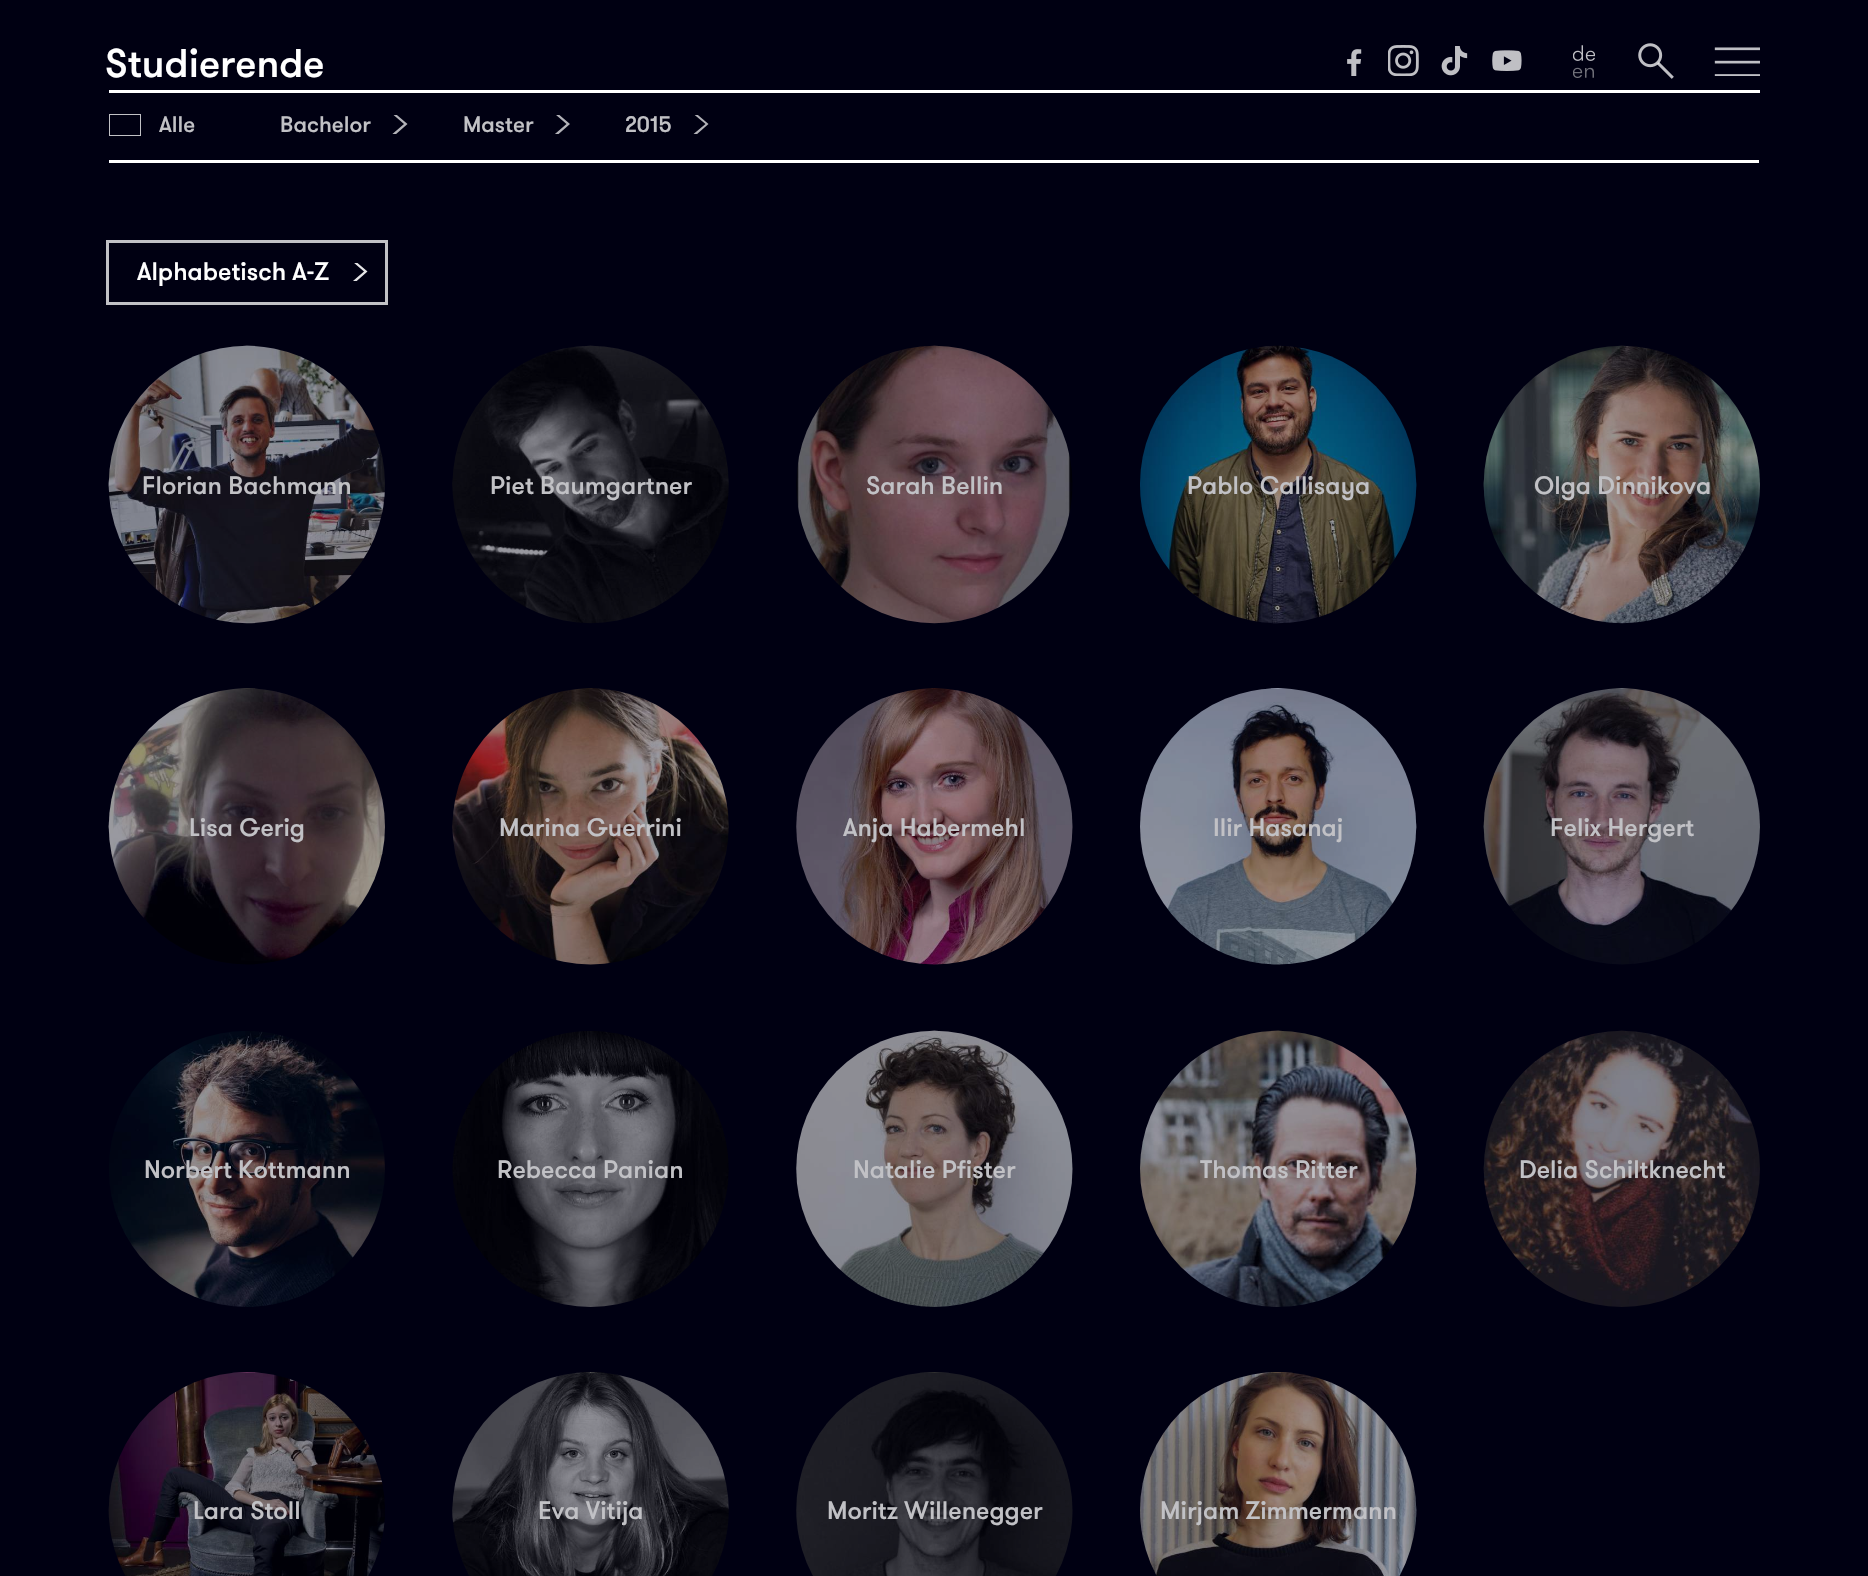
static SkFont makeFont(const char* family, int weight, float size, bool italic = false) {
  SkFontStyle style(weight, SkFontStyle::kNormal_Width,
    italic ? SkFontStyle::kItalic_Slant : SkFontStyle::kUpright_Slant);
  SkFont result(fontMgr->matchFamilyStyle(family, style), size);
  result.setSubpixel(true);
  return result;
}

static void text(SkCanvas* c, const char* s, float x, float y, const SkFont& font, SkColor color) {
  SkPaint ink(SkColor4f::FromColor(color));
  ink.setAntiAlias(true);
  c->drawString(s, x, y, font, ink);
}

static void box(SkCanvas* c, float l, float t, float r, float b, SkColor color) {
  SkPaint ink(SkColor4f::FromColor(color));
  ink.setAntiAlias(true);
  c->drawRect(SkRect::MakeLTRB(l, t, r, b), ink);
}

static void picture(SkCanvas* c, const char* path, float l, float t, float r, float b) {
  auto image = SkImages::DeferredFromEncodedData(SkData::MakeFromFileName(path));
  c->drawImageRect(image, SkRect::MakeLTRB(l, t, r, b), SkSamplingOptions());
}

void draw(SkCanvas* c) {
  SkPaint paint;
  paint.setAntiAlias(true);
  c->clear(0xff000012);
  SkFont face1 = makeFont("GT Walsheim", 500, 40);
  text(c, "Studierende", 105, 77, face1, 0xffffffff);
  picture(c, "img_01.png", 1347, 49, 1362, 76);
  picture(c, "img_02.png", 1388, 45, 1419, 76);
  picture(c, "img_03.png", 1441, 46, 1468, 76);
  picture(c, "img_04.png", 1492, 50, 1522, 71);
  picture(c, "img_05.png", 1573, 45, 1595, 78);
  picture(c, "img_06.png", 1638, 43, 1674, 79);
  picture(c, "img_07.png", 1714, 47, 1760, 76);
  box(c, 109, 90, 1760, 93, 0xffffffff);
  box(c, 109, 160, 1759, 163, 0xffffffff);
  paint.setStyle(SkPaint::kStroke_Style);
  paint.setStrokeWidth(1);
  paint.setColor(0xffc1c1c5);
  c->drawRect(SkRect::MakeLTRB(109.5f, 114.5f, 140.5f, 135.5f), paint);
  SkFont face2 = makeFont("GT Walsheim", 500, 22.5f);
  text(c, "Alle", 159, 132, face2, 0xffc1c1c5);
  text(c, "Bachelor", 280, 132, face2, 0xffc1c1c5);
  c->save();
  c->clipRect(SkRect::MakeLTRB(384, 115, 413, 134));
  paint.setStyle(SkPaint::kFill_Style);
  paint.setColor(0xffb3b3b8);
  c->drawPath(SkPathBuilder(SkPathFillType::kEvenOdd).moveTo(391, 138.5f).lineTo(407.5f, 124).lineTo(391, 110).lineTo(389.5f, 111.5f).lineTo(404, 124).lineTo(389.5f, 136.5f).close().detach(), paint);
  c->restore();
  text(c, "Master", 463, 132, face2, 0xffc1c1c5);
  c->save();
  c->clipRect(SkRect::MakeLTRB(546, 115, 575, 134));
  c->drawPath(SkPathBuilder(SkPathFillType::kEvenOdd).moveTo(553.5f, 138.5f).lineTo(570, 124).lineTo(553.5f, 110).lineTo(552, 111.5f).lineTo(566.5f, 124).lineTo(552, 136.5f).close().detach(), paint);
  c->restore();
  text(c, "2015", 625, 132, face2, 0xffc1c1c5);
  c->save();
  c->clipRect(SkRect::MakeLTRB(685, 115, 714, 134));
  c->drawPath(SkPathBuilder(SkPathFillType::kEvenOdd).moveTo(692, 138.5f).lineTo(708.5f, 124).lineTo(692, 110).lineTo(690.5f, 111.5f).lineTo(705.5f, 124).lineTo(690.5f, 136.5f).close().detach(), paint);
  c->restore();
  paint.setStyle(SkPaint::kStroke_Style);
  paint.setStrokeWidth(3);
  paint.setColor(0xffc1c1c5);
  c->drawRect(SkRect::MakeLTRB(107.5f, 241.5f, 386.5f, 303.5f), paint);
  SkFont face3 = makeFont("GT Walsheim", 500, 25.25f);
  text(c, "Alphabetisch A-Z", 137, 280, face3, 0xffffffff);
  c->save();
  c->clipRect(SkRect::MakeLTRB(344, 263, 373, 281));
  paint.setStyle(SkPaint::kFill_Style);
  paint.setColor(0xffe6e6e7);
  c->drawPath(SkPathBuilder(SkPathFillType::kEvenOdd).moveTo(351, 286).lineTo(367.5f, 271.5f).lineTo(351, 257.5f).lineTo(349.5f, 259).lineTo(364, 271.5f).lineTo(349.5f, 284).close().detach(), paint);
  c->restore();
  picture(c, "img_08.png", 108, 345, 385, 624);
  text(c, "Florian Bachmann", 142, 494, face3, 0xffc1c1c5);
  picture(c, "img_09.png", 452, 345, 729, 624);
  text(c, "Piet Baumgartner", 490, 494, face3, 0xffc1c1c5);
  picture(c, "img_10.png", 796, 345, 1073, 624);
  text(c, "Sarah Bellin", 866, 494, face3, 0xffc1c1c5);
  picture(c, "img_11.png", 1140, 345, 1417, 624);
  text(c, "Pablo Callisaya", 1187, 494, face3, 0xffc1c1c5);
  picture(c, "img_12.png", 1483, 345, 1760, 624);
  text(c, "Olga Dinnikova", 1534, 494, face3, 0xffc1c1c5);
  picture(c, "img_13.png", 108, 688, 385, 965);
  text(c, "Lisa Gerig", 189, 836, face3, 0xffc1c1c5);
  picture(c, "img_14.png", 452, 688, 729, 965);
  text(c, "Marina Guerrini", 499, 836, face3, 0xffc1c1c5);
  picture(c, "img_15.png", 796, 688, 1073, 965);
  text(c, "Anja Habermehl", 843, 836, face3, 0xffc1c1c5);
  picture(c, "img_16.png", 1140, 688, 1417, 965);
  text(c, "Ilir Hasanaj", 1213, 836, face3, 0xffc1c1c5);
  picture(c, "img_17.png", 1483, 688, 1760, 965);
  text(c, "Felix Hergert", 1550, 836, face3, 0xffc1c1c5);
  picture(c, "img_18.png", 109, 1031, 385, 1307);
  text(c, "Norbert Kottmann", 144, 1178, face3, 0xffc1c1c5);
  picture(c, "img_19.png", 452, 1031, 729, 1307);
  text(c, "Rebecca Panian", 497, 1178, face3, 0xffc1c1c5);
  picture(c, "img_20.png", 796, 1030, 1073, 1307);
  text(c, "Natalie Pfister", 853, 1178, face3, 0xffc1c1c5);
  picture(c, "img_21.png", 1140, 1030, 1417, 1307);
  text(c, "Thomas Ritter", 1200, 1178, face3, 0xffc1c1c5);
  picture(c, "img_22.png", 1483, 1030, 1760, 1307);
  text(c, "Delia Schiltknecht", 1519, 1178, face3, 0xffc1c1c5);
  picture(c, "img_23.png", 108, 1372, 385, 1576);
  text(c, "Lara Stoll", 193, 1519, face3, 0xffc1c1c5);
  picture(c, "img_24.png", 452, 1372, 729, 1576);
  text(c, "Eva Vitija", 538, 1519, face3, 0xffc1c1c5);
  picture(c, "img_25.png", 796, 1372, 1073, 1576);
  text(c, "Moritz Willenegger", 827, 1519, face3, 0xffc1c1c5);
  picture(c, "img_26.png", 1140, 1372, 1417, 1576);
  text(c, "Mirjam Zimmermann", 1160, 1519, face3, 0xffc1c1c5);
}
